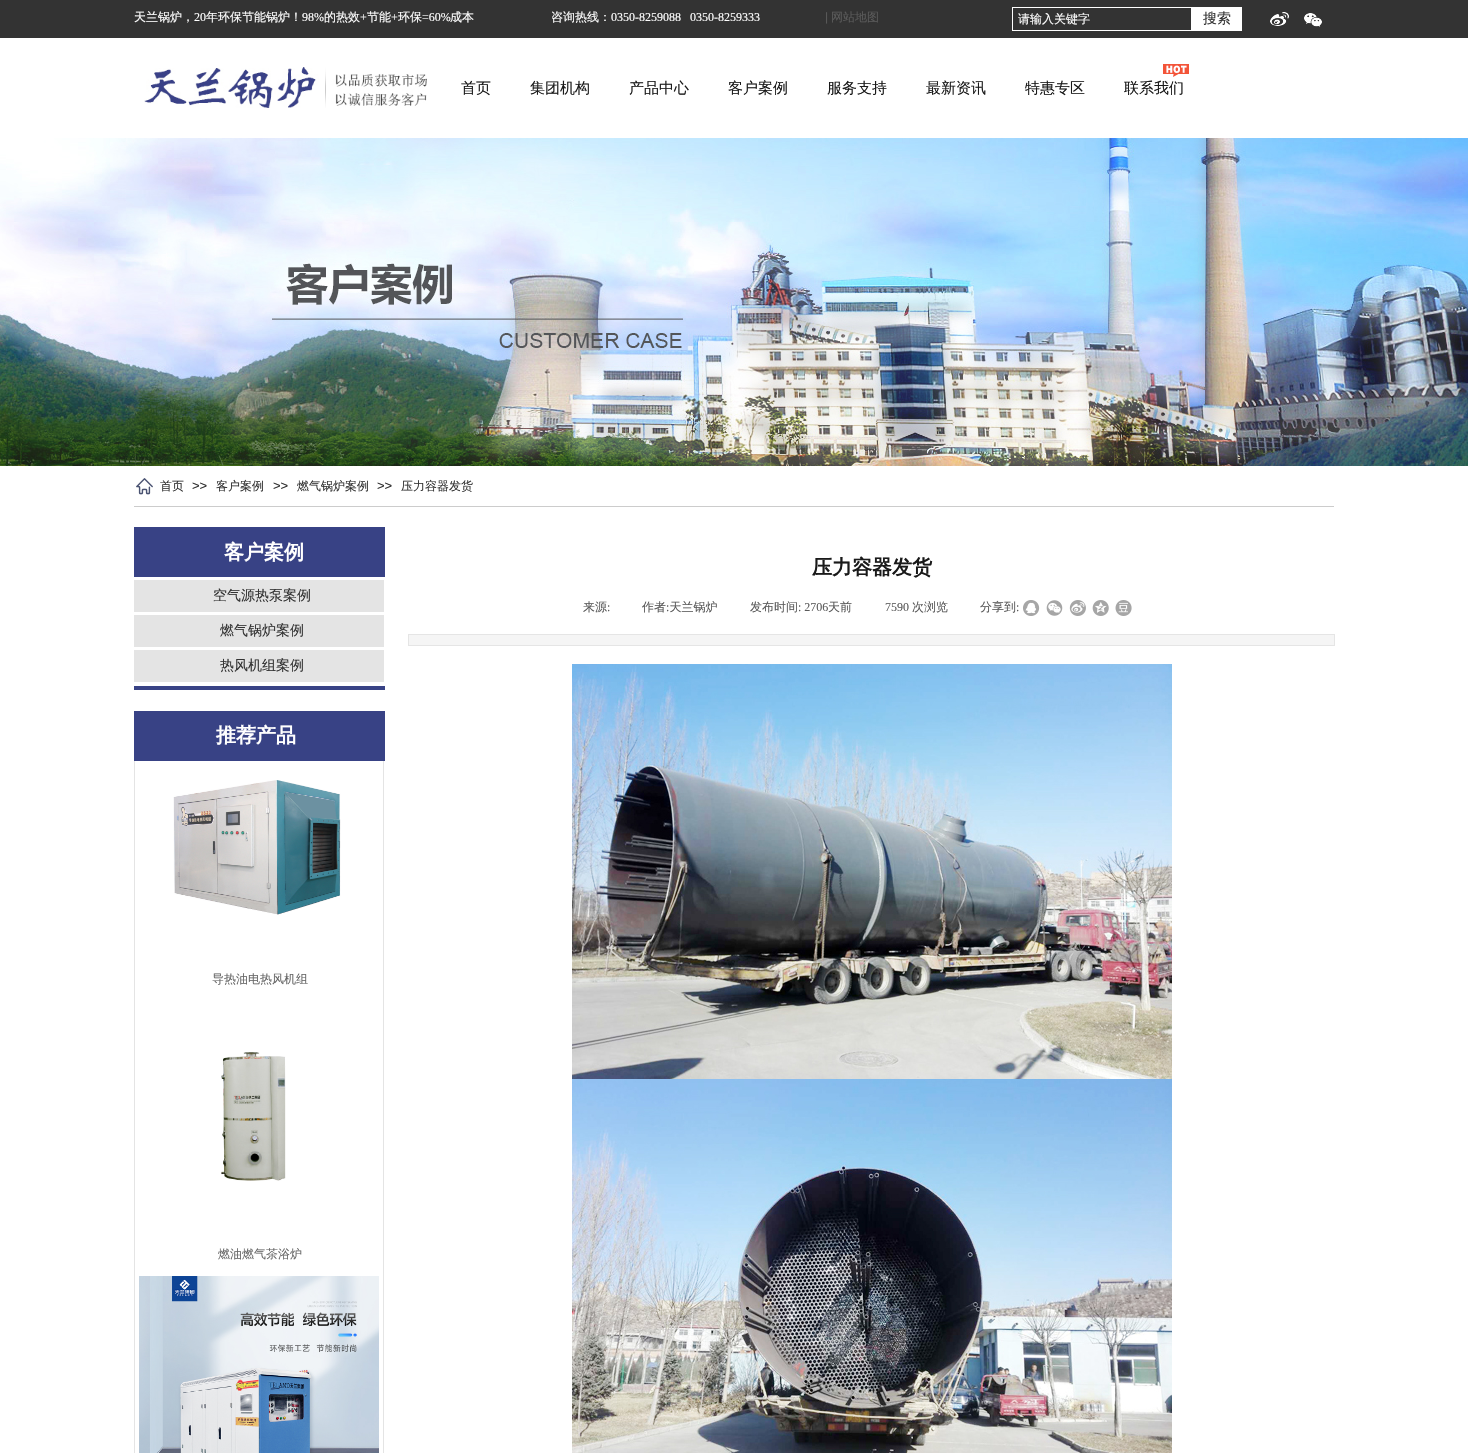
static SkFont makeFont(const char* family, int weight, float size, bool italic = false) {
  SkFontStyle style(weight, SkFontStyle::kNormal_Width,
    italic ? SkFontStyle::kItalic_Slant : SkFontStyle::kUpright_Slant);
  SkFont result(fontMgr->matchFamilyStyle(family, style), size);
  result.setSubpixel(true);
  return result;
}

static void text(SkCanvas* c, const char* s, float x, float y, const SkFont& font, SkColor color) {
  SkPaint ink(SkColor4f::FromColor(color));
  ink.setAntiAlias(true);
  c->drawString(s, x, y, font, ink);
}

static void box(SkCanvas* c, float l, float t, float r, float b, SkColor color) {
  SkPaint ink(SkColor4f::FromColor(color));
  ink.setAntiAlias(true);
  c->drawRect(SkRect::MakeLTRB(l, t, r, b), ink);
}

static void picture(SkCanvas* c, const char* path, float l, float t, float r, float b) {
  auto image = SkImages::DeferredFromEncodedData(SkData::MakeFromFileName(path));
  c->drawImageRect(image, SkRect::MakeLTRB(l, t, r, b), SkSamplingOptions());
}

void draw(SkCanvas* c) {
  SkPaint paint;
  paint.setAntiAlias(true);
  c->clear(0xffffffff);
  box(c, 0, 0, 1468, 38, 0xff333333);
  SkFont face1 = makeFont("WenQuanYi Zen Hei", 500, 12);
  text(c, "天兰锅炉，", 134, 21, face1, 0xffffffff);
  SkFont face2 = makeFont("Liberation Serif", 400, 12);
  text(c, "20", 194, 21, face2, 0xffffffff);
  text(c, "年环保节能锅炉！", 206, 21, face1, 0xffffffff);
  text(c, "98%", 302, 21, face2, 0xffffffff);
  text(c, "的热效", 324, 21, face1, 0xffffffff);
  text(c, "+", 360, 21, face2, 0xffffffff);
  text(c, "节能", 367, 21, face1, 0xffffffff);
  text(c, "+", 391, 21, face2, 0xffffffff);
  text(c, "环保", 398, 21, face1, 0xffffffff);
  text(c, "=60%", 422, 21, face2, 0xffffffff);
  text(c, "成本", 450, 21, face1, 0xffffffff);
  text(c, "咨询热线：", 551, 21, face1, 0xffffffff);
  text(c, "0350-8259088   0350-8259333", 611, 21, face2, 0xffffffff);
  SkFont face3 = makeFont("Liberation Sans", 400, 12);
  text(c, "|", 825, 21, face3, 0xff5a5a5a);
  text(c, "网站地图", 831, 21, face1, 0xff5a5a5a);
  paint.setStyle(SkPaint::kStroke_Style);
  paint.setStrokeWidth(1);
  paint.setColor(0xffffffff);
  c->drawRect(SkRect::MakeLTRB(1012.5f, 7.5f, 1191.5f, 30.5f), paint);
  text(c, "请输入关键字", 1018, 23, face1, 0xffffffff);
  box(c, 1192, 7, 1242, 31, 0xffffffff);
  SkFont face4 = makeFont("WenQuanYi Zen Hei", 500, 14);
  text(c, "搜索", 1203, 23, face4, 0xff333333);
  picture(c, "img_01.png", 1270, 12, 1289, 26);
  picture(c, "img_02.png", 1304, 13, 1322, 27);
  picture(c, "img_03.png", 144, 67, 427, 108);
  picture(c, "img_04.png", 1163, 64, 1189, 77);
  SkFont face5 = makeFont("WenQuanYi Zen Hei", 500, 15);
  text(c, "首页", 461, 93, face5, 0xff1a1a1a);
  text(c, "集团机构", 530, 93, face5, 0xff1a1a1a);
  text(c, "产品中心", 629, 93, face5, 0xff1a1a1a);
  text(c, "客户案例", 728, 93, face5, 0xff1a1a1a);
  text(c, "服务支持", 827, 93, face5, 0xff1a1a1a);
  text(c, "最新资讯", 926, 93, face5, 0xff1a1a1a);
  text(c, "特惠专区", 1025, 93, face5, 0xff1a1a1a);
  text(c, "联系我们", 1124, 93, face5, 0xff1a1a1a);
  picture(c, "img_05.png", 0, 138, 1468, 466);
  picture(c, "img_06.png", 136, 478, 153, 495);
  text(c, "首页", 160, 490, face1, 0xff333333);
  SkFont face6 = makeFont("Liberation Sans", 400, 13);
  text(c, ">>", 192, 490, face6, 0xff333333);
  text(c, "客户案例", 216, 490, face1, 0xff333333);
  text(c, ">>", 273, 490, face6, 0xff333333);
  text(c, "燃气锅炉案例", 297, 490, face1, 0xff333333);
  text(c, ">>", 377, 490, face6, 0xff333333);
  text(c, "压力容器发货", 401, 490, face1, 0xff333333);
  box(c, 134, 506, 1334, 507, 0xffcccccc);
  box(c, 134, 527, 385, 577, 0xff384285);
  SkFont face7 = makeFont("WenQuanYi Zen Hei", 700, 20);
  text(c, "客户案例", 224, 559, face7, 0xffffffff);
  box(c, 134, 580, 384, 612, 0xffe4e4e4);
  text(c, "空气源热泵案例", 213, 600, face4, 0xff333333);
  box(c, 134, 615, 384, 647, 0xffe4e4e4);
  text(c, "燃气锅炉案例", 220, 635, face4, 0xff333333);
  box(c, 134, 650, 384, 682, 0xffe4e4e4);
  text(c, "热风机组案例", 220, 670, face4, 0xff333333);
  box(c, 134, 686, 385, 690, 0xff384285);
  text(c, "压力容器发货", 812, 574, face7, 0xff1a1a1a);
  text(c, "来源", 583, 611, face1, 0xff5a5a5a);
  text(c, ":", 607, 611, face2, 0xff5a5a5a);
  text(c, "作者 天兰锅炉", 642, 611, face1, 0xff5a5a5a);
  text(c, ":", 666, 611, face2, 0xff5a5a5a);
  text(c, "发布时间", 750, 611, face1, 0xff5a5a5a);
  text(c, ": 2706", 798, 611, face2, 0xff5a5a5a);
  text(c, "天前", 828, 611, face1, 0xff5a5a5a);
  text(c, "7590", 885, 611, face2, 0xff5a5a5a);
  text(c, "次浏览", 912, 611, face1, 0xff5a5a5a);
  text(c, "分享到", 980, 611, face1, 0xff5a5a5a);
  text(c, ":", 1016, 611, face2, 0xff5a5a5a);
  picture(c, "img_07.png", 1023, 600, 1040, 616);
  picture(c, "img_08.png", 1046, 600, 1063, 616);
  picture(c, "img_09.png", 1069, 600, 1086, 616);
  picture(c, "img_10.png", 1092, 600, 1109, 616);
  picture(c, "img_11.png", 1115, 600, 1132, 616);
  paint.setStyle(SkPaint::kFill_Style);
  paint.setColor(0xfff5f5f5);
  c->drawRect(SkRect::MakeLTRB(408.5f, 634.5f, 1334.5f, 645.5f), paint);
  paint.setStyle(SkPaint::kStroke_Style);
  paint.setColor(0xffe5e5e5);
  c->drawRect(SkRect::MakeLTRB(408.5f, 634.5f, 1334.5f, 645.5f), paint);
  picture(c, "img_12.png", 572, 664, 1172, 1079);
  picture(c, "img_13.png", 572, 1079, 1172, 1453);
  box(c, 134, 711, 385, 761, 0xff384285);
  text(c, "推荐产品", 216, 742, face7, 0xffffffff);
  box(c, 383, 761, 384, 1453, 0xffe4e4e4);
  box(c, 134, 761, 135, 1453, 0xffe4e4e4);
  picture(c, "img_14.png", 173, 780, 341, 915);
  text(c, "导热油电热风机组", 212, 983, face1, 0xff666666);
  picture(c, "img_15.png", 221, 1052, 286, 1181);
  text(c, "燃油燃气茶浴炉", 218, 1258, face1, 0xff666666);
  picture(c, "img_16.png", 139, 1276, 379, 1453);
}
